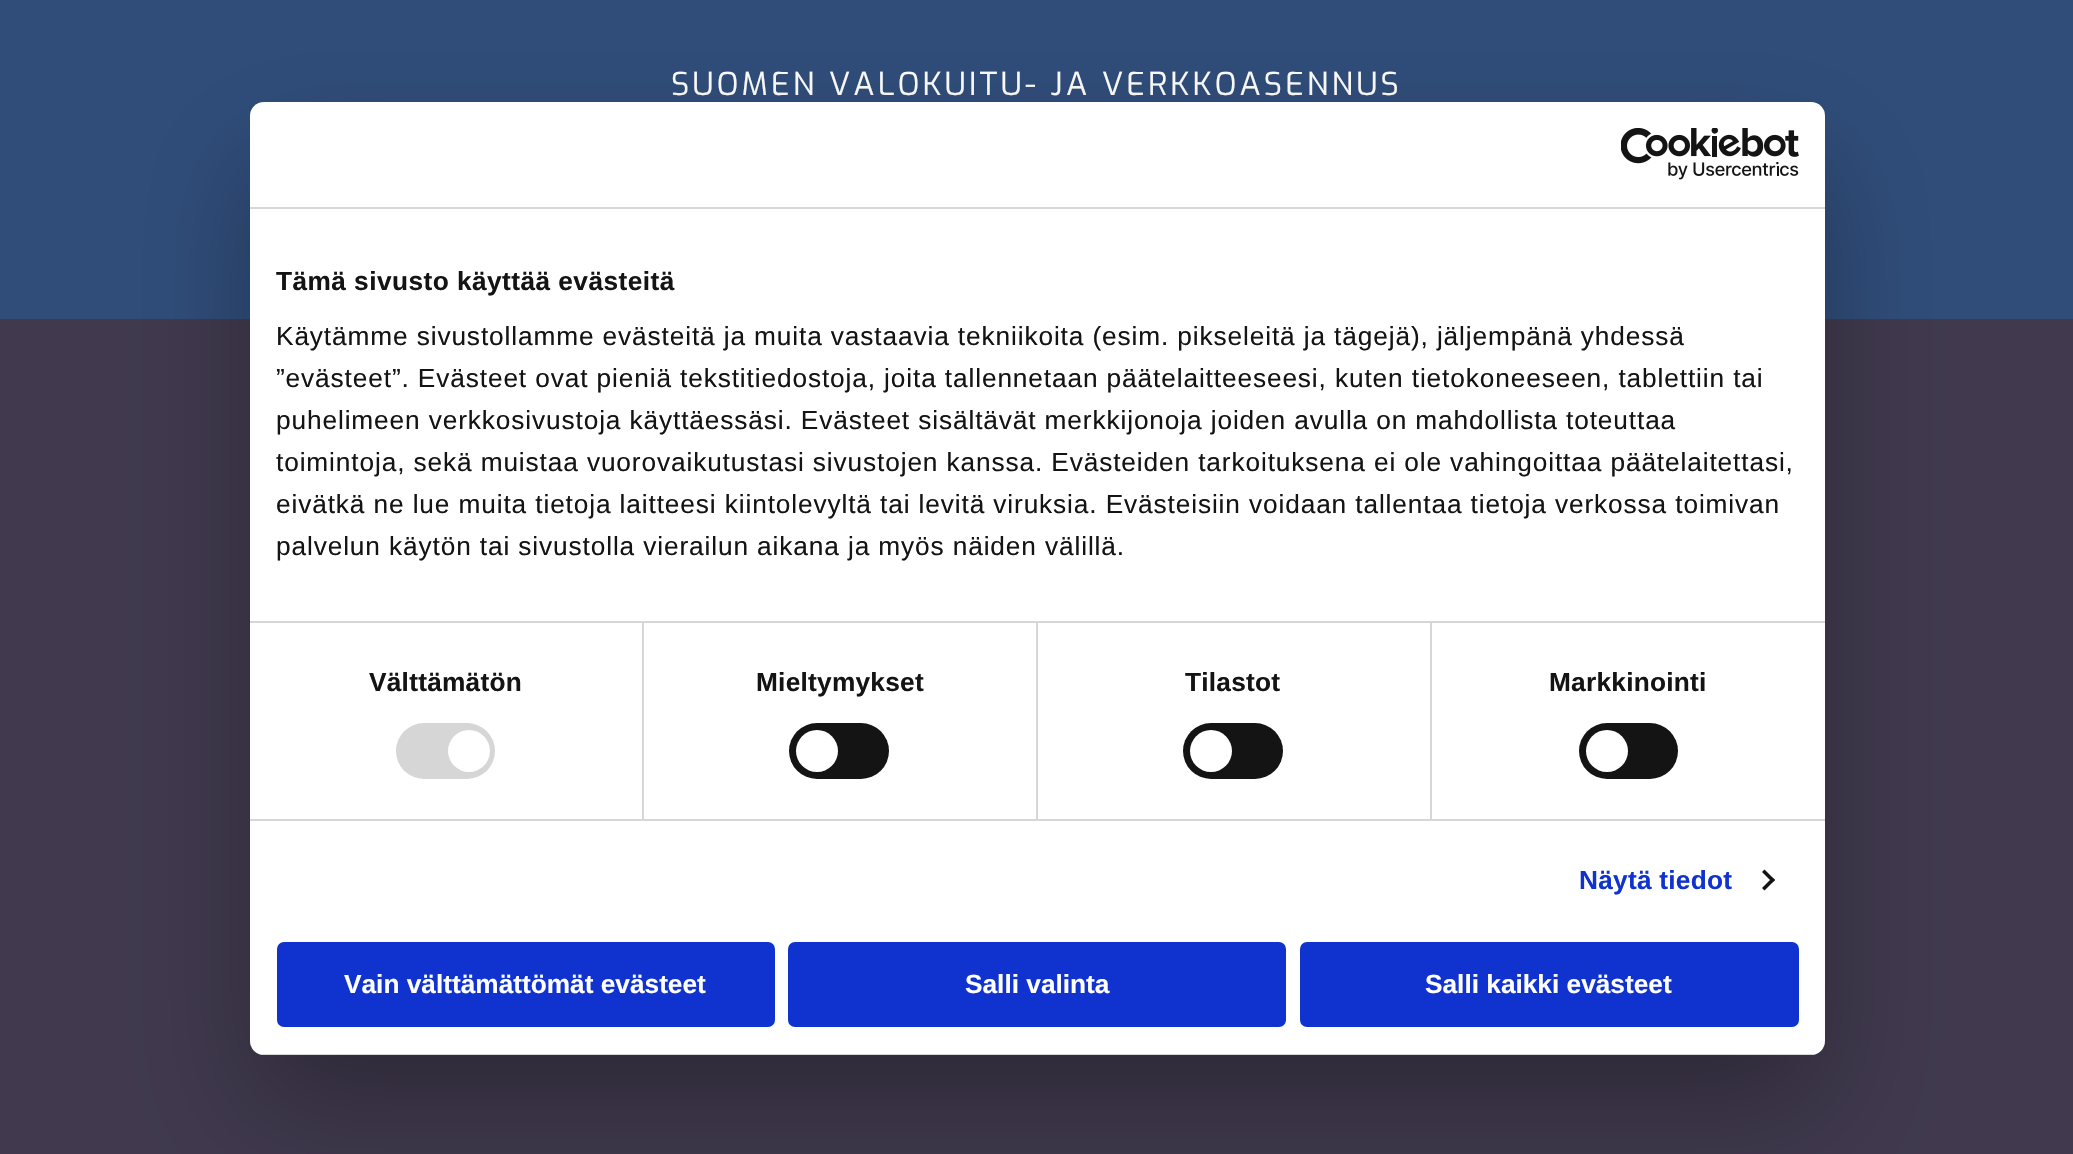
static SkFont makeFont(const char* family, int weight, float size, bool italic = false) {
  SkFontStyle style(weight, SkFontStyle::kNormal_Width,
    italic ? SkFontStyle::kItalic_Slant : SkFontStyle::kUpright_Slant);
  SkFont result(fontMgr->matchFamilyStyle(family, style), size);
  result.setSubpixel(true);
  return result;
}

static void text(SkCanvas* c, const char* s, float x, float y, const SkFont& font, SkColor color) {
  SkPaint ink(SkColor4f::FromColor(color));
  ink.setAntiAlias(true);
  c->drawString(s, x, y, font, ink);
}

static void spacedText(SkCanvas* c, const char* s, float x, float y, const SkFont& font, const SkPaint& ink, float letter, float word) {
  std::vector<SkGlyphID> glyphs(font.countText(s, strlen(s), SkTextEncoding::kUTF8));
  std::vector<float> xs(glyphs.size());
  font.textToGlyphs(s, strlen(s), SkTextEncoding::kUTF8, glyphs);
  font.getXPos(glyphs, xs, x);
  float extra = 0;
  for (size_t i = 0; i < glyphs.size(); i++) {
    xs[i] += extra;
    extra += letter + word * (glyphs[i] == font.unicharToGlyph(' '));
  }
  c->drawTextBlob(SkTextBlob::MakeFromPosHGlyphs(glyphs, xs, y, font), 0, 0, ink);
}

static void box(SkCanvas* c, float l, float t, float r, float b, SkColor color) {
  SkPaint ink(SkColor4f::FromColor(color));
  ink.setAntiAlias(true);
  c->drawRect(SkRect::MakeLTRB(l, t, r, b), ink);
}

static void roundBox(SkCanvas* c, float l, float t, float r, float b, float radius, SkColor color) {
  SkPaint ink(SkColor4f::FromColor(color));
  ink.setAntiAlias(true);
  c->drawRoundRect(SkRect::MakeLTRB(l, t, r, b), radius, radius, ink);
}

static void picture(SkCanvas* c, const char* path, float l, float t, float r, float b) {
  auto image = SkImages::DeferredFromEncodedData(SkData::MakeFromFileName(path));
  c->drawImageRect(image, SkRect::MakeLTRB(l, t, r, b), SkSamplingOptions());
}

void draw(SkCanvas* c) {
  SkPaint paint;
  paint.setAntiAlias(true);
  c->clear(0xff413a4f);
  box(c, 0, 0, 2073, 319, 0xff304d7a);
  SkFont face1 = makeFont("Exo", 400, 31.5f);
  paint.setColor(0xffffffff);
  spacedText(c, "SUOMEN VALOKUITU- JA VERKKOASENNUS", 671, 95, face1, paint, 3.15f, 0);
  paint.setColor(0x4d000000);
  paint.setMaskFilter(SkMaskFilter::MakeBlur(kNormal_SkBlurStyle, 59.5f));
  c->drawRoundRect(SkRect::MakeLTRB(250, 158, 1825, 1111), 14, 14, paint);
  paint.setMaskFilter(nullptr);
  roundBox(c, 250, 102, 1825, 1055, 14, 0xffffffff);
  box(c, 250, 207, 1825, 209, 0xffd6d6d6);
  picture(c, "img_01.png", 1621, 128, 1799, 180);
  box(c, 250, 621, 1825, 623, 0xffd6d6d6);
  SkFont face2 = makeFont("Liberation Sans", 700, 26.25f);
  paint.setColor(0xff141414);
  spacedText(c, "Tämä sivusto käyttää evästeitä", 276, 290, face2, paint, 0.45f, 0);
  SkFont face3 = makeFont("Liberation Sans", 400, 26.25f);
  spacedText(c, "Käytämme sivustollamme evästeitä ja muita vastaavia tekniikoita (esim. pikseleitä ja tägejä), jäljempänä yhdessä", 276, 345, face3, paint, 0.88f, 0);
  spacedText(c, "”evästeet”. Evästeet ovat pieniä tekstitiedostoja, joita tallennetaan päätelaitteeseesi, kuten tietokoneeseen, tablettiin tai", 276, 387, face3, paint, 0.88f, 0);
  spacedText(c, "puhelimeen verkkosivustoja käyttäessäsi. Evästeet sisältävät merkkijonoja joiden avulla on mahdollista toteuttaa", 276, 429, face3, paint, 0.88f, 0);
  spacedText(c, "toimintoja, sekä muistaa vuorovaikutustasi sivustojen kanssa. Evästeiden tarkoituksena ei ole vahingoittaa päätelaitettasi,", 276, 471, face3, paint, 0.88f, 0);
  spacedText(c, "eivätkä ne lue muita tietoja laitteesi kiintolevyltä tai levitä viruksia. Evästeisiin voidaan tallentaa tietoja verkossa toimivan", 276, 513, face3, paint, 0.88f, 0);
  spacedText(c, "palvelun käytön tai sivustolla vierailun aikana ja myös näiden välillä.", 276, 555, face3, paint, 0.88f, 0);
  box(c, 250, 819, 1825, 821, 0xffd6d6d6);
  box(c, 642, 623, 644, 819, 0xffd6d6d6);
  spacedText(c, "Välttämätön", 369, 691, face2, paint, 0.25f, 0);
  roundBox(c, 396, 723, 495, 779, 28, 0xffd6d6d6);
  paint.setColor(0xffffffff);
  c->drawCircle(469, 751, 21, paint);
  box(c, 1036, 623, 1038, 819, 0xffd6d6d6);
  paint.setColor(0xff141414);
  spacedText(c, "Mieltymykset", 756, 691, face2, paint, 0.25f, 0);
  roundBox(c, 789, 723, 889, 779, 28, 0xff141414);
  paint.setColor(0xffffffff);
  c->drawCircle(817, 751, 21, paint);
  box(c, 1430, 623, 1432, 819, 0xffd6d6d6);
  paint.setColor(0xff141414);
  spacedText(c, "Tilastot", 1185, 691, face2, paint, 0.25f, 0);
  roundBox(c, 1183, 723, 1283, 779, 28, 0xff141414);
  paint.setColor(0xffffffff);
  c->drawCircle(1211, 751, 21, paint);
  paint.setColor(0xff141414);
  spacedText(c, "Markkinointi", 1549, 691, face2, paint, 0.25f, 0);
  roundBox(c, 1579, 723, 1678, 779, 28, 0xff141414);
  paint.setColor(0xffffffff);
  c->drawCircle(1607, 751, 21, paint);
  paint.setColor(0xff1032cf);
  spacedText(c, "Näytä tiedot", 1579, 889, face2, paint, 0.25f, 0);
  paint.setColor(0xff141414);
  c->drawPath(SkPathBuilder().moveTo(1764.5f, 869.5f).lineTo(1775, 880).lineTo(1772.5f, 882.5f).lineTo(1762, 872).close().detach(), paint);
  c->drawPath(SkPathBuilder().moveTo(1772.5f, 877.5f).lineTo(1775, 880).lineTo(1764.5f, 890.5f).lineTo(1762, 888).close().detach(), paint);
  c->save();
  c->clipPath(SkPathBuilder().moveTo(264, 102).lineTo(1811, 102).cubicTo(1818.5f, 102, 1825, 108.5f, 1825, 116).lineTo(1825, 1041).cubicTo(1825, 1048.5f, 1818.5f, 1055, 1811, 1055).lineTo(264, 1055).cubicTo(256.5f, 1055, 250, 1048.5f, 250, 1041).lineTo(250, 116).cubicTo(250, 108.5f, 256.5f, 102, 264, 102).close().detach(), true);
  box(c, 259, 1054, 1816, 1055, 0xffd6d6d6);
  c->restore();
  paint.setColor(0xff1032cf);
  c->drawRoundRect(SkRect::MakeLTRB(279, 944, 773, 1025), 5, 5, paint);
  paint.setStyle(SkPaint::kStroke_Style);
  paint.setStrokeWidth(4);
  c->drawRoundRect(SkRect::MakeLTRB(279, 944, 773, 1025), 5, 5, paint);
  text(c, "Vain välttämättömät evästeet", 344, 993, face2, 0xffffffff);
  paint.setStyle(SkPaint::kFill_Style);
  c->drawRoundRect(SkRect::MakeLTRB(790, 944, 1284, 1025), 5, 5, paint);
  paint.setStyle(SkPaint::kStroke_Style);
  c->drawRoundRect(SkRect::MakeLTRB(790, 944, 1284, 1025), 5, 5, paint);
  text(c, "Salli valinta", 965, 993, face2, 0xffffffff);
  paint.setStyle(SkPaint::kFill_Style);
  c->drawRoundRect(SkRect::MakeLTRB(1302, 944, 1797, 1025), 5, 5, paint);
  paint.setStyle(SkPaint::kStroke_Style);
  c->drawRoundRect(SkRect::MakeLTRB(1302, 944, 1797, 1025), 5, 5, paint);
  text(c, "Salli kaikki evästeet", 1425, 993, face2, 0xffffffff);
}
